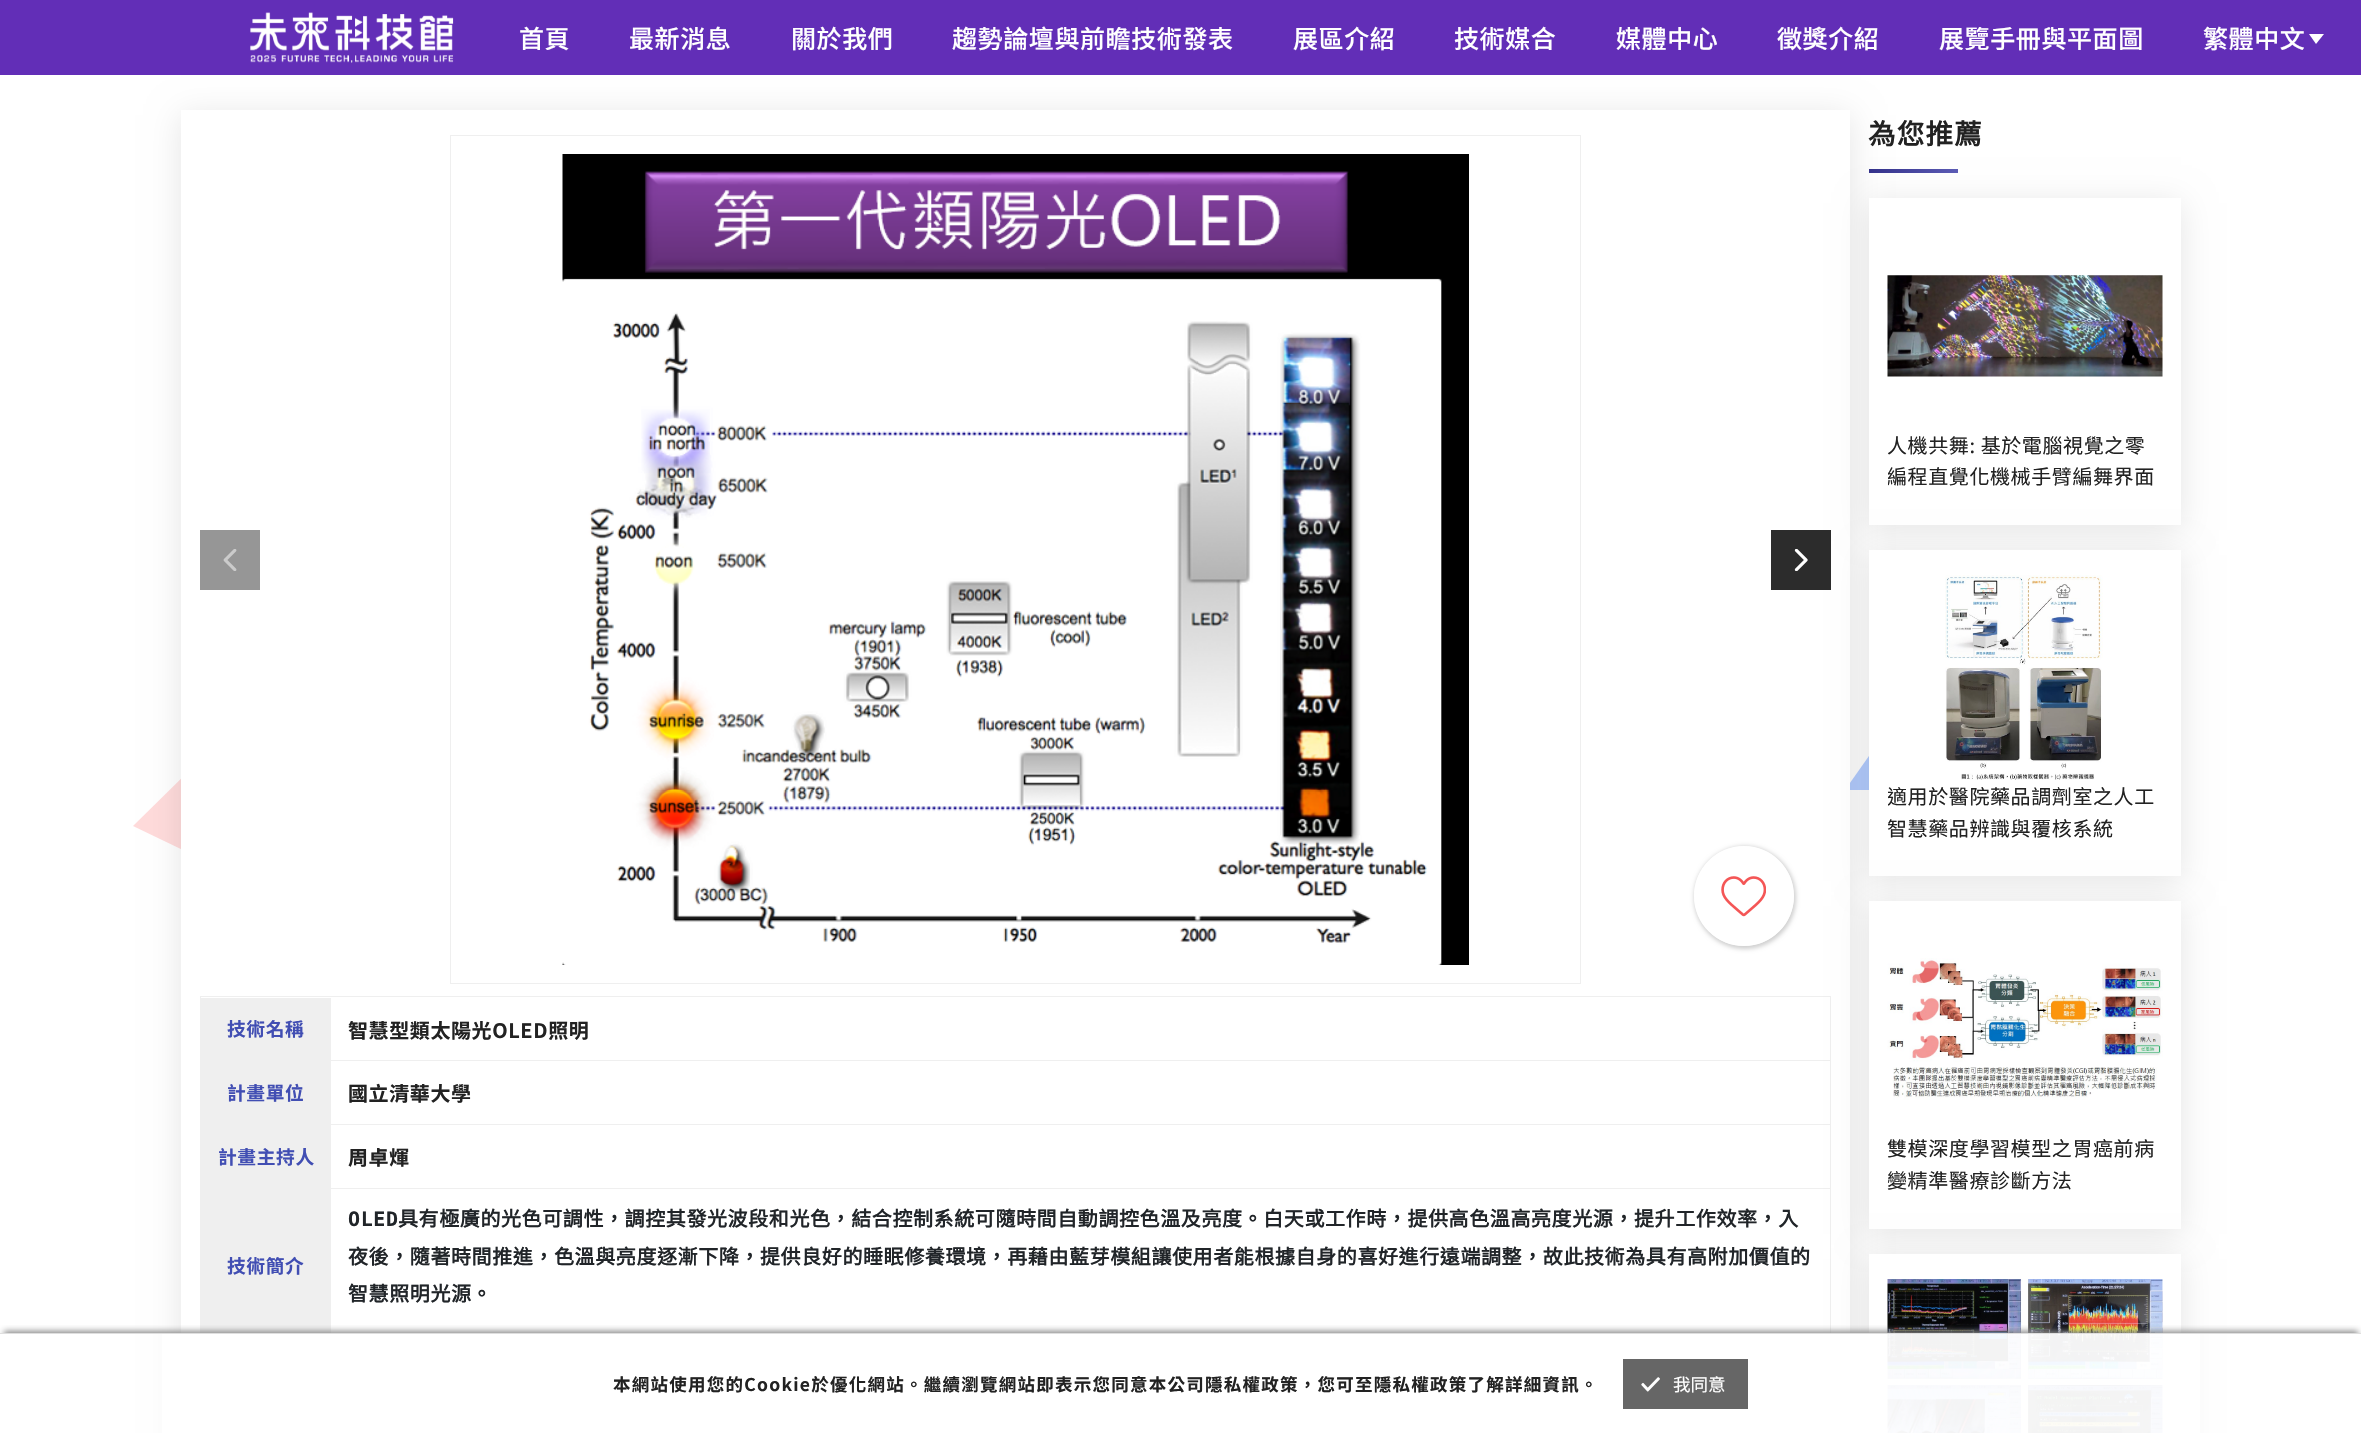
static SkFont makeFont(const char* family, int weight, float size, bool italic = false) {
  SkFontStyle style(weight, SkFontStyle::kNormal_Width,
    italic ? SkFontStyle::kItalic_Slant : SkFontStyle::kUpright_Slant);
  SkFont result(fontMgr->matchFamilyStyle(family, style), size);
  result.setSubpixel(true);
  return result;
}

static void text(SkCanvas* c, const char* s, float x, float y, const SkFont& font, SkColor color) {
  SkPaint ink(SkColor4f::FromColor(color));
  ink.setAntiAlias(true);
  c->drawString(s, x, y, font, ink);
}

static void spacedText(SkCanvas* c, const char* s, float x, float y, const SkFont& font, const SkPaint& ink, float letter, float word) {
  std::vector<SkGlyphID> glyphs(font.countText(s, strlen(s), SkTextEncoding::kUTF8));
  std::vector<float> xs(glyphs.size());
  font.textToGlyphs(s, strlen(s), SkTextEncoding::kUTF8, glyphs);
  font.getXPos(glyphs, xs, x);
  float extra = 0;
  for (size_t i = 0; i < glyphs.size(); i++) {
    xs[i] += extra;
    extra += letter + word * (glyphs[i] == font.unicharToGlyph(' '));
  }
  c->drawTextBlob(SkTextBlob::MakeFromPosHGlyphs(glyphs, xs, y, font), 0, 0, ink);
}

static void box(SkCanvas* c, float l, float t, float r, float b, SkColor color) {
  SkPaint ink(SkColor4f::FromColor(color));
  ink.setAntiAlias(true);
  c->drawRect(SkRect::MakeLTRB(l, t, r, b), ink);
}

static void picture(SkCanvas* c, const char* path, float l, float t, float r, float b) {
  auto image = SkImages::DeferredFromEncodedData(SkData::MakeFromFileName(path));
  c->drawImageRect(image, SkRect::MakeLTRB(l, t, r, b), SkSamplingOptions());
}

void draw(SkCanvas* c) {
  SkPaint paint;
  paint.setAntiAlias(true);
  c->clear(0xffffffff);
  paint.setColor(0xffb3ccff);
  c->drawPath(SkPathBuilder().moveTo(2008, 790).lineTo(1845, 790).lineTo(1926, 675).close().detach(), paint);
  paint.setColor(0xffffdbdb);
  c->drawPath(SkPathBuilder().moveTo(195, 765).lineTo(212, 864).lineTo(133, 826).close().detach(), paint);
  paint.setColor(0x1a000000);
  paint.setMaskFilter(SkMaskFilter::MakeBlur(kNormal_SkBlurStyle, 15.5f));
  c->drawRect(SkRect::MakeLTRB(181, 115, 1850, 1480), paint);
  paint.setMaskFilter(nullptr);
  box(c, 0, 0, 2361, 75, 0xff622eb7);
  picture(c, "img_01.png", 250, 12, 454, 63);
  SkFont face1 = makeFont("Noto Sans TC", 500, 25);
  paint.setColor(0xffffffff);
  spacedText(c, "首頁", 519, 48, face1, paint, 0.6f, 0);
  spacedText(c, "最新消息", 629, 48, face1, paint, 0.6f, 0);
  spacedText(c, "關於我們", 791, 48, face1, paint, 0.6f, 0);
  spacedText(c, "趨勢論壇與前瞻技術發表", 952, 48, face1, paint, 0.6f, 0);
  spacedText(c, "展區介紹", 1293, 48, face1, paint, 0.6f, 0);
  spacedText(c, "技術媒合", 1454, 48, face1, paint, 0.6f, 0);
  spacedText(c, "媒體中心", 1616, 48, face1, paint, 0.6f, 0);
  spacedText(c, "徵獎介紹", 1777, 48, face1, paint, 0.6f, 0);
  spacedText(c, "展覽手冊與平面圖", 1939, 48, face1, paint, 0.6f, 0);
  spacedText(c, "繁體中文", 2203, 48, face1, paint, 0.6f, 0);
  c->drawPath(SkPathBuilder().moveTo(2309, 34).lineTo(2324, 34).lineTo(2316, 44).close().detach(), paint);
  box(c, 181, 110, 1850, 1433, 0xffffffff);
  paint.setStyle(SkPaint::kStroke_Style);
  paint.setStrokeWidth(1);
  paint.setColor(0xffefefef);
  c->drawRect(SkRect::MakeLTRB(450.5f, 135.5f, 1580.5f, 983.5f), paint);
  picture(c, "img_02.png", 562, 154, 1469, 965);
  box(c, 200, 530, 260, 590, 0xff969696);
  picture(c, "img_03.png", 223, 549, 237, 571);
  paint.setStyle(SkPaint::kFill_Style);
  paint.setColor(0x1a000000);
  paint.setMaskFilter(SkMaskFilter::MakeBlur(kNormal_SkBlurStyle, 15.5f));
  c->drawRect(SkRect::MakeLTRB(1869, 203, 2181, 530), paint);
  paint.setMaskFilter(nullptr);
  box(c, 1869, 198, 2181, 525, 0xffffffff);
  paint.setMaskFilter(SkMaskFilter::MakeBlur(kNormal_SkBlurStyle, 15.5f));
  c->drawRect(SkRect::MakeLTRB(1869, 555, 2181, 881), paint);
  paint.setMaskFilter(nullptr);
  box(c, 1771, 530, 1831, 590, 0xff2c2c2c);
  picture(c, "img_04.png", 1794, 549, 1808, 571);
  c->save();
  c->clipPath(SkPathBuilder(SkPathFillType::kEvenOdd).moveTo(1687, 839).lineTo(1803, 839).lineTo(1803, 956).lineTo(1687, 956).close().moveTo(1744, 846).cubicTo(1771.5f, 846, 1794, 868.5f, 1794, 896).cubicTo(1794, 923.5f, 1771.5f, 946, 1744, 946).cubicTo(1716.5f, 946, 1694, 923.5f, 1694, 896).cubicTo(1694, 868.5f, 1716.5f, 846, 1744, 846).close().detach(), true);
  paint.setColor(0xffcfcfcf);
  paint.setMaskFilter(SkMaskFilter::MakeBlur(kNormal_SkBlurStyle, 2));
  c->drawRoundRect(SkRect::MakeLTRB(1694, 846, 1796, 949), 51, 51, paint);
  paint.setMaskFilter(nullptr);
  c->restore();
  paint.setColor(0xccffffff);
  c->drawCircle(1744, 896, 50, paint);
  picture(c, "img_05.png", 1721, 876, 1766, 917);
  box(c, 200, 996, 1831, 997, 0xffefefef);
  box(c, 1830, 996, 1831, 1433, 0xffefefef);
  box(c, 200, 996, 201, 1433, 0xffefefef);
  box(c, 200, 1060, 1831, 1061, 0xffefefef);
  box(c, 201, 998, 331, 1060, 0xffefefef);
  SkFont face2 = makeFont("Noto Sans TC", 700, 18.75f);
  paint.setColor(0xff414eb3);
  spacedText(c, "技術名稱", 227, 1036, face2, paint, 0.6f, 0);
  SkFont face3 = makeFont("Noto Sans TC", 700, 20);
  paint.setColor(0xff222222);
  spacedText(c, "智慧型類太陽光OLED照明", 348, 1038, face3, paint, 0.6f, 0);
  box(c, 200, 1124, 1831, 1125, 0xffefefef);
  box(c, 201, 1061, 331, 1124, 0xffefefef);
  paint.setColor(0xff414eb3);
  spacedText(c, "計畫單位", 227, 1100, face2, paint, 0.6f, 0);
  paint.setColor(0xff222222);
  spacedText(c, "國立清華大學", 348, 1101, face3, paint, 0.6f, 0);
  box(c, 200, 1188, 1831, 1189, 0xffefefef);
  box(c, 201, 1125, 331, 1188, 0xffefefef);
  paint.setColor(0xff414eb3);
  spacedText(c, "計畫主持人", 218, 1164, face2, paint, 0.6f, 0);
  paint.setColor(0xff222222);
  spacedText(c, "周卓煇", 348, 1165, face3, paint, 0.6f, 0);
  box(c, 200, 1343, 1831, 1344, 0xffefefef);
  box(c, 201, 1189, 331, 1343, 0xffefefef);
  paint.setColor(0xff414eb3);
  spacedText(c, "技術簡介", 227, 1273, face2, paint, 0.6f, 0);
  SkFont face4 = makeFont("DejaVu Sans Mono", 700, 20);
  paint.setColor(0xff212529);
  spacedText(c, "OLED", 348, 1226, face4, paint, 0.6f, 0);
  SkFont face5 = makeFont("Noto Sans CJK TC", 700, 20);
  spacedText(c, "具有極廣的光色可調性，調控其發光波段和光色，結合控制系統可隨時間自動調控色溫及亮度。白天或工作時，提供高色溫高亮度光源，提升工作效率，入", 398, 1226, face5, paint, 0.6f, 0);
  spacedText(c, "夜後，隨著時間推進，色溫與亮度逐漸下降，提供良好的睡眠修養環境，再藉由藍芽模組讓使用者能根據自身的喜好進行遠端調整，故此技術為具有高附加價值的", 348, 1264, face5, paint, 0.6f, 0);
  spacedText(c, "智慧照明光源。", 348, 1301, face5, paint, 0.6f, 0);
  box(c, 201, 1344, 331, 1433, 0xffefefef);
  SkFont face6 = makeFont("Noto Sans CJK TC", 700, 27.5f);
  paint.setColor(0xff222222);
  spacedText(c, "為您推薦", 1868, 144, face6, paint, 1.25f, 0);
  {
    const SkColor colors[] = {0xff5c5cb5, 0xff33318a};
    const float stops[] = {0, 1};
    const SkPoint ends[] = {{1936, 194}, {1890, 148}};
    paint.setShader(SkGradientShader::MakeLinear(ends, colors, stops, 2, SkTileMode::kClamp));
    paint.setAlpha(255);
  }
  c->drawRect(SkRect::MakeLTRB(1869, 169, 1958, 173), paint);
  picture(c, "img_06.png", 1887, 275, 2163, 377);
  SkFont face7 = makeFont("Noto Sans TC", 400, 20);
  paint.setShader(nullptr);
  paint.setColor(0xff222222);
  spacedText(c, "人機共舞: 基於電腦視覺之零", 1887, 453, face7, paint, 0.6f, 0);
  c->save();
  c->clipRect(SkRect::MakeLTRB(1888, 429, 2163, 491));
  spacedText(c, "編程直覺化機械手臂編舞界面", 1887, 484, face7, paint, 0.6f, 0);
  c->restore();
  box(c, 1869, 550, 2181, 876, 0xffffffff);
  picture(c, "img_07.png", 1945, 575, 2103, 780);
  c->save();
  c->clipRect(SkRect::MakeLTRB(1888, 781, 2163, 844));
  spacedText(c, "適用於醫院藥品調劑室之人工", 1887, 804, face7, paint, 0.6f, 0);
  c->restore();
  spacedText(c, "智慧藥品辨識與覆核系統", 1887, 836, face7, paint, 0.6f, 0);
  paint.setColor(0x1a000000);
  paint.setMaskFilter(SkMaskFilter::MakeBlur(kNormal_SkBlurStyle, 15.5f));
  c->drawRect(SkRect::MakeLTRB(1869, 906, 2181, 1234), paint);
  paint.setMaskFilter(nullptr);
  box(c, 1869, 901, 2181, 1229, 0xffffffff);
  picture(c, "img_08.png", 1887, 958, 2163, 1100);
  paint.setColor(0xff222222);
  spacedText(c, "雙模深度學習模型之胃癌前病", 1887, 1156, face7, paint, 0.6f, 0);
  spacedText(c, "變精準醫療診斷方法", 1887, 1188, face7, paint, 0.6f, 0);
  paint.setColor(0x1a000000);
  paint.setMaskFilter(SkMaskFilter::MakeBlur(kNormal_SkBlurStyle, 15.5f));
  c->drawRect(SkRect::MakeLTRB(1869, 1259, 2181, 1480), paint);
  paint.setMaskFilter(nullptr);
  box(c, 1869, 1254, 2181, 1433, 0xffffffff);
  picture(c, "img_09.png", 1887, 1279, 2163, 1433);
  c->save();
  c->clipRect(SkRect::MakeLTRB(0, 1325, 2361, 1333));
  paint.setColor(0xff8a8a8a);
  paint.setMaskFilter(SkMaskFilter::MakeBlur(kNormal_SkBlurStyle, 3));
  c->drawRect(SkRect::MakeLTRB(4, 1331, 2358, 1425), paint);
  paint.setMaskFilter(nullptr);
  c->restore();
  box(c, 162, 1334, 2200, 1433, 0xf2ffffff);
  box(c, 0, 1333, 2361, 1334, 0xffdfdfdf);
  SkFont face8 = makeFont("Noto Sans TC", 700, 17.5f);
  paint.setColor(0xff222222);
  spacedText(c, "本網站使用您的Cookie於優化網站。繼續瀏覽網站即表示您同意本公司隱私權政策，您可至隱私權政策了解詳細資訊。", 613, 1391, face8, paint, 1.25f, 0);
  box(c, 1623, 1359, 1748, 1409, 0xff666666);
  picture(c, "img_10.png", 1641, 1377, 1660, 1392);
  SkFont face9 = makeFont("Noto Sans TC", 400, 17.5f);
  text(c, "我同意", 1673, 1391, face9, 0xffffffff);
}
